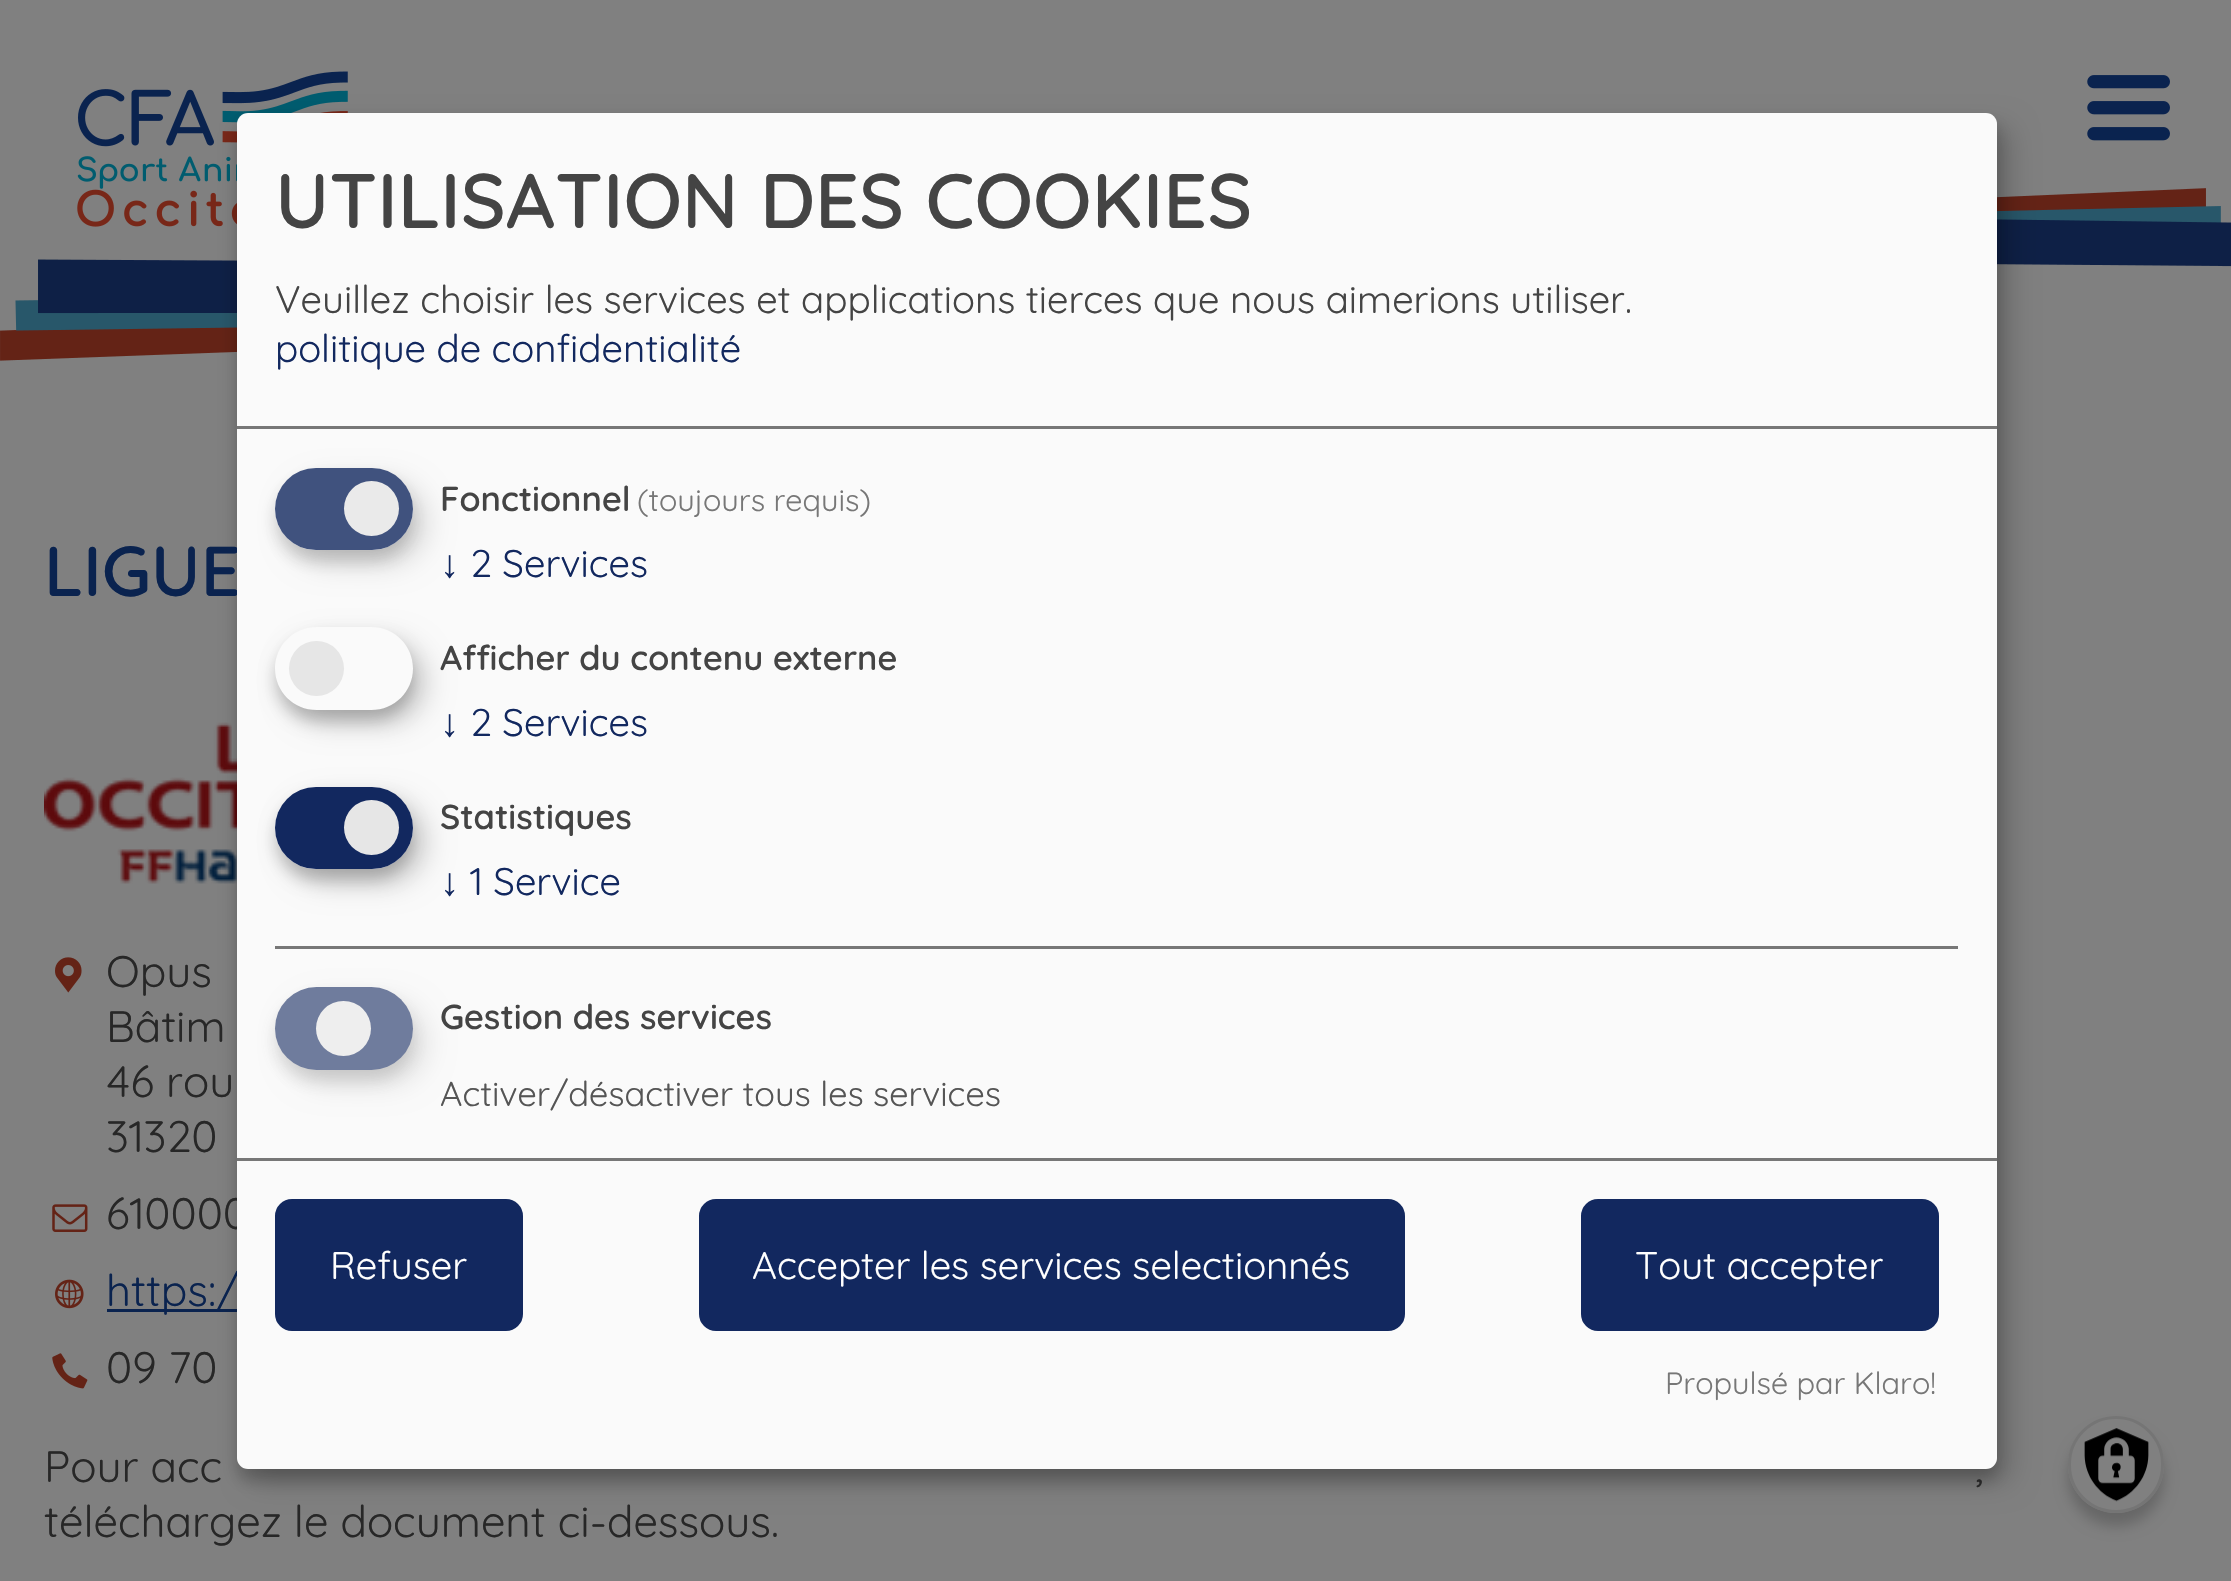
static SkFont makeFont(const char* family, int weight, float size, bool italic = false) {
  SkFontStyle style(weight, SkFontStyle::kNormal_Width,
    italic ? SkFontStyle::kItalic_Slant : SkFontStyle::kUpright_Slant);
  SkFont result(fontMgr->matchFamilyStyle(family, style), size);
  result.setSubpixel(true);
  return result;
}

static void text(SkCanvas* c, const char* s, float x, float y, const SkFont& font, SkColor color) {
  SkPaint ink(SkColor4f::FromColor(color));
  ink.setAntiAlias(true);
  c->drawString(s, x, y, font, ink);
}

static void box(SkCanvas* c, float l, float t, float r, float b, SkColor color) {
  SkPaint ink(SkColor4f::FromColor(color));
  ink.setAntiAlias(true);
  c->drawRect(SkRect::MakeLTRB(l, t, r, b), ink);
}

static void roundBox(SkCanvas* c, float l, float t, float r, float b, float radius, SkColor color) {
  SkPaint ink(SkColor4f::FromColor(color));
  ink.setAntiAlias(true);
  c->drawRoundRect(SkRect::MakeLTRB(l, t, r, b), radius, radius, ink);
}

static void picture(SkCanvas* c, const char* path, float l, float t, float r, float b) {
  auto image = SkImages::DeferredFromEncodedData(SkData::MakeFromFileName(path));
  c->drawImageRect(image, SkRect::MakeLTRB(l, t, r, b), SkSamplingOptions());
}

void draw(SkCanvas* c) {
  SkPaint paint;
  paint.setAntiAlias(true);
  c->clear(0xff808080);
  picture(c, "img_03.png", 0, 188, 2231, 361);
  picture(c, "img_01.png", 77, 71, 348, 227);
  picture(c, "img_04.png", 44, 722, 237, 884);
  box(c, 107, 1309, 237, 1312, 0xff0a234f);
  paint.setColor(0x30000000);
  paint.setMaskFilter(SkMaskFilter::MakeBlur(kNormal_SkBlurStyle, 14));
  c->drawRoundRect(SkRect::MakeLTRB(250, 127, 2010, 1482), 11, 11, paint);
  paint.setMaskFilter(nullptr);
  paint.setColor(0x33000000);
  paint.setMaskFilter(SkMaskFilter::MakeBlur(kNormal_SkBlurStyle, 8));
  c->drawRoundRect(SkRect::MakeLTRB(237, 124, 1997, 1480), 11, 11, paint);
  paint.setMaskFilter(nullptr);
  SkFont face1 = makeFont("Quicksand", 600, 70.5f);
  text(c, "LIGUE", 44, 596, face1, 0xff0a234f);
  SkFont face2 = makeFont("Quicksand", 400, 44);
  text(c, "610000", 106, 1229, face2, 0xff272727);
  text(c, "https:/", 106, 1306, face2, 0xff0a234f);
  roundBox(c, 237, 113, 1997, 1469, 11, 0xfffafafa);
  box(c, 237, 426, 1997, 429, 0xff777777);
  SkFont face3 = makeFont("Quicksand", 600, 77);
  text(c, "UTILISATION DES COOKIES", 275, 228, face3, 0xff444444);
  SkFont face4 = makeFont("Quicksand", 400, 38.5f);
  text(c, "Veuillez choisir les services et applications tierces que nous aimerions utiliser.", 275, 313, face4, 0xff444444);
  text(c, "politique de confidentialité", 275, 362, face4, 0xff12285f);
  c->save();
  c->clipPath(SkPathBuilder(SkPathFillType::kEvenOdd).moveTo(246, 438).lineTo(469, 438).lineTo(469, 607).lineTo(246, 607).close().moveTo(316, 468).lineTo(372, 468).cubicTo(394.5f, 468, 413, 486.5f, 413, 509).cubicTo(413, 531.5f, 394.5f, 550, 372, 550).lineTo(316, 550).cubicTo(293.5f, 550, 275, 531.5f, 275, 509).cubicTo(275, 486.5f, 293.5f, 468, 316, 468).close().detach(), true);
  paint.setColor(0x26000000);
  paint.setMaskFilter(SkMaskFilter::MakeBlur(kNormal_SkBlurStyle, 14));
  c->drawRoundRect(SkRect::MakeLTRB(289, 481, 426, 564), 41.5f, 41.5f, paint);
  paint.setMaskFilter(nullptr);
  c->restore();
  c->save();
  c->clipPath(SkPathBuilder(SkPathFillType::kEvenOdd).moveTo(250, 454).lineTo(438, 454).lineTo(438, 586).lineTo(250, 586).close().moveTo(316, 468).lineTo(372, 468).cubicTo(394.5f, 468, 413, 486.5f, 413, 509).cubicTo(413, 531.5f, 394.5f, 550, 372, 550).lineTo(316, 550).cubicTo(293.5f, 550, 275, 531.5f, 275, 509).cubicTo(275, 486.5f, 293.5f, 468, 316, 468).close().detach(), true);
  paint.setColor(0x33323232);
  paint.setMaskFilter(SkMaskFilter::MakeBlur(kNormal_SkBlurStyle, 8));
  c->drawRoundRect(SkRect::MakeLTRB(275, 479, 413, 561), 41, 41, paint);
  paint.setMaskFilter(nullptr);
  c->restore();
  roundBox(c, 275, 468, 413, 550, 41, 0xff40527e);
  paint.setColor(0xffeaeaea);
  c->drawCircle(371.5f, 508.5f, 27.5f, paint);
  SkFont face5 = makeFont("Quicksand", 600, 34.6f);
  text(c, "Fonctionnel", 440, 511, face5, 0xff444444);
  SkFont face6 = makeFont("Quicksand", 400, 30.75f);
  text(c, "(toujours requis)", 637, 511, face6, 0xff777777);
  SkFont face7 = makeFont("Liberation Sans", 400, 38.5f);
  text(c, "↓", 440, 577, face7, 0xff12285f);
  text(c, "2 Services", 470, 577, face4, 0xff12285f);
  c->save();
  c->clipPath(SkPathBuilder(SkPathFillType::kEvenOdd).moveTo(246, 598).lineTo(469, 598).lineTo(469, 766).lineTo(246, 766).close().moveTo(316.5f, 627).lineTo(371.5f, 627).cubicTo(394.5f, 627, 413, 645.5f, 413, 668.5f).cubicTo(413, 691.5f, 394.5f, 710, 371.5f, 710).lineTo(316.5f, 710).cubicTo(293.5f, 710, 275, 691.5f, 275, 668.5f).cubicTo(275, 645.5f, 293.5f, 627, 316.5f, 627).close().detach(), true);
  paint.setColor(0x30000000);
  paint.setMaskFilter(SkMaskFilter::MakeBlur(kNormal_SkBlurStyle, 14));
  c->drawRoundRect(SkRect::MakeLTRB(289, 641, 426, 723), 41, 41, paint);
  paint.setMaskFilter(nullptr);
  c->restore();
  c->save();
  c->clipPath(SkPathBuilder(SkPathFillType::kEvenOdd).moveTo(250, 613).lineTo(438, 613).lineTo(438, 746).lineTo(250, 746).close().moveTo(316.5f, 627).lineTo(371.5f, 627).cubicTo(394.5f, 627, 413, 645.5f, 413, 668.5f).cubicTo(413, 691.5f, 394.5f, 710, 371.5f, 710).lineTo(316.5f, 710).cubicTo(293.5f, 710, 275, 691.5f, 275, 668.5f).cubicTo(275, 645.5f, 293.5f, 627, 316.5f, 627).close().detach(), true);
  paint.setColor(0x33000000);
  paint.setMaskFilter(SkMaskFilter::MakeBlur(kNormal_SkBlurStyle, 8));
  c->drawRoundRect(SkRect::MakeLTRB(275, 638, 413, 721), 41.5f, 41.5f, paint);
  paint.setMaskFilter(nullptr);
  c->restore();
  paint.setColor(0xffe6e6e6);
  c->drawCircle(316.5f, 668.5f, 27.5f, paint);
  text(c, "Afficher du contenu externe", 440, 670, face5, 0xff444444);
  text(c, "↓", 440, 736, face7, 0xff12285f);
  text(c, "2 Services", 470, 736, face4, 0xff12285f);
  c->save();
  c->clipPath(SkPathBuilder(SkPathFillType::kEvenOdd).moveTo(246, 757).lineTo(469, 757).lineTo(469, 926).lineTo(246, 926).close().moveTo(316, 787).lineTo(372, 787).cubicTo(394.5f, 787, 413, 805.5f, 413, 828).cubicTo(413, 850.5f, 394.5f, 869, 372, 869).lineTo(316, 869).cubicTo(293.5f, 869, 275, 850.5f, 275, 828).cubicTo(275, 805.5f, 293.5f, 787, 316, 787).close().detach(), true);
  paint.setColor(0x30000000);
  paint.setMaskFilter(SkMaskFilter::MakeBlur(kNormal_SkBlurStyle, 14));
  c->drawRoundRect(SkRect::MakeLTRB(289, 800, 426, 883), 41.5f, 41.5f, paint);
  paint.setMaskFilter(nullptr);
  c->restore();
  c->save();
  c->clipPath(SkPathBuilder(SkPathFillType::kEvenOdd).moveTo(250, 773).lineTo(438, 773).lineTo(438, 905).lineTo(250, 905).close().moveTo(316, 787).lineTo(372, 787).cubicTo(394.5f, 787, 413, 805.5f, 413, 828).cubicTo(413, 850.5f, 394.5f, 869, 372, 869).lineTo(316, 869).cubicTo(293.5f, 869, 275, 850.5f, 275, 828).cubicTo(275, 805.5f, 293.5f, 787, 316, 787).close().detach(), true);
  paint.setColor(0x33000000);
  paint.setMaskFilter(SkMaskFilter::MakeBlur(kNormal_SkBlurStyle, 8));
  c->drawRoundRect(SkRect::MakeLTRB(275, 798, 413, 880), 41, 41, paint);
  paint.setMaskFilter(nullptr);
  c->restore();
  roundBox(c, 275, 787, 413, 869, 41, 0xff12285f);
  paint.setColor(0xffe6e6e6);
  c->drawCircle(371.5f, 827.5f, 27.5f, paint);
  text(c, "Statistiques", 440, 829, face5, 0xff444444);
  text(c, "↓", 440, 895, face7, 0xff12285f);
  text(c, "1 Service", 470, 895, face4, 0xff12285f);
  box(c, 275, 946, 1958, 949, 0xff777777);
  paint.setColor(0x1c000000);
  paint.setMaskFilter(SkMaskFilter::MakeBlur(kNormal_SkBlurStyle, 14));
  c->drawRoundRect(SkRect::MakeLTRB(289, 1001, 426, 1084), 41.5f, 41.5f, paint);
  paint.setMaskFilter(nullptr);
  paint.setColor(0x33646464);
  paint.setMaskFilter(SkMaskFilter::MakeBlur(kNormal_SkBlurStyle, 8));
  c->drawRoundRect(SkRect::MakeLTRB(275, 998, 413, 1081), 41.5f, 41.5f, paint);
  paint.setMaskFilter(nullptr);
  roundBox(c, 275, 987, 413, 1070, 41.5f, 0xff6f7c9d);
  paint.setColor(0xffeeeeee);
  c->drawCircle(343.5f, 1028.5f, 27.5f, paint);
  text(c, "Gestion des services", 440, 1029, face5, 0xff444444);
  SkFont face8 = makeFont("Quicksand", 400, 34.6f);
  text(c, "Activer/désactiver tous les services", 440, 1106, face8, 0xff555555);
  box(c, 237, 1158, 1997, 1161, 0xff777777);
  paint.setColor(0xff12285f);
  c->drawRoundRect(SkRect::MakeLTRB(279, 1203, 519, 1327), 13, 13, paint);
  paint.setStyle(SkPaint::kStroke_Style);
  paint.setStrokeWidth(8);
  c->drawRoundRect(SkRect::MakeLTRB(279, 1203, 519, 1327), 13, 13, paint);
  text(c, "Refuser", 330, 1279, face4, 0xffffffff);
  paint.setStyle(SkPaint::kFill_Style);
  c->drawRoundRect(SkRect::MakeLTRB(703, 1203, 1401, 1327), 13, 13, paint);
  paint.setStyle(SkPaint::kStroke_Style);
  c->drawRoundRect(SkRect::MakeLTRB(703, 1203, 1401, 1327), 13, 13, paint);
  text(c, "Accepter les services selectionnés", 752, 1279, face4, 0xffffffff);
  paint.setStyle(SkPaint::kFill_Style);
  c->drawRoundRect(SkRect::MakeLTRB(1585, 1203, 1935, 1327), 13, 13, paint);
  paint.setStyle(SkPaint::kStroke_Style);
  c->drawRoundRect(SkRect::MakeLTRB(1585, 1203, 1935, 1327), 13, 13, paint);
  text(c, "Tout accepter", 1635, 1279, face4, 0xffffffff);
  text(c, "Propulsé par Klaro!", 1665, 1394, face6, 0xff777777);
  picture(c, "img_02.png", 2087, 75, 2170, 141);
  picture(c, "img_05.png", 55, 957, 82, 993);
  text(c, "Opus", 106, 987, face2, 0xff272727);
  text(c, "Bâtim", 106, 1042, face2, 0xff272727);
  text(c, "46 rou", 106, 1097, face2, 0xff272727);
  text(c, "31320", 106, 1152, face2, 0xff272727);
  picture(c, "img_06.png", 52, 1204, 88, 1232);
  picture(c, "img_07.png", 55, 1279, 84, 1309);
  picture(c, "img_08.png", 52, 1353, 88, 1389);
  text(c, "09 70", 106, 1383, face2, 0xff272727);
  text(c, "Pour acc", 44, 1482, face2, 0xff272727);
  text(c, ",", 1975, 1482, face2, 0xff272727);
  text(c, "téléchargez le document ci-dessous.", 44, 1537, face2, 0xff272727);
  paint.setStyle(SkPaint::kFill_Style);
  paint.setColor(0x33000000);
  paint.setMaskFilter(SkMaskFilter::MakeBlur(kNormal_SkBlurStyle, 7));
  c->drawRoundRect(SkRect::MakeLTRB(2068, 1430, 2164, 1526), 48, 48, paint);
  paint.setMaskFilter(nullptr);
  roundBox(c, 2068, 1416, 2164, 1513, 48, 0xff808080);
  picture(c, "img_09.png", 2084, 1428, 2149, 1502);
  paint.setStyle(SkPaint::kStroke_Style);
  paint.setStrokeWidth(3);
  paint.setColor(0xff757575);
  c->drawRoundRect(SkRect::MakeLTRB(2069.5f, 1417.5f, 2162.5f, 1511.5f), 46.5f, 46.5f, paint);
}
